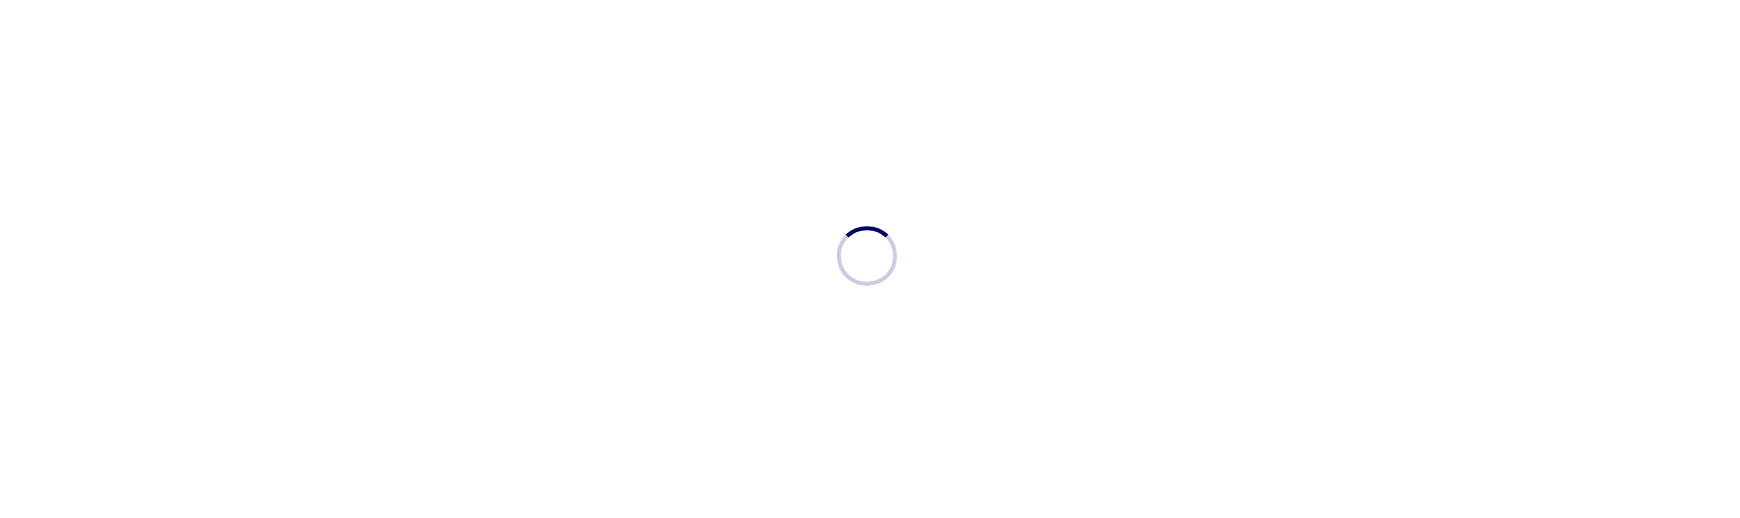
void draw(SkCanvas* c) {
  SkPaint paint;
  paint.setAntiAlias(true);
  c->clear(0xffffffff);
  paint.setStyle(SkPaint::kStroke_Style);
  paint.setStrokeWidth(4);
  paint.setColor(0xff000066);
  c->drawPath(SkPathBuilder().moveTo(847, 236).cubicTo(858, 225.5f, 876, 225.5f, 887, 236).detach(), paint);
  paint.setColor(0x33000066);
  c->drawPath(SkPathBuilder().moveTo(887, 236).cubicTo(892, 241.5f, 895, 248.5f, 895, 256).cubicTo(895, 289.5f, 846, 294, 839.5f, 261.5f).cubicTo(837.5f, 252.5f, 840.5f, 243, 847, 236).detach(), paint);
}
